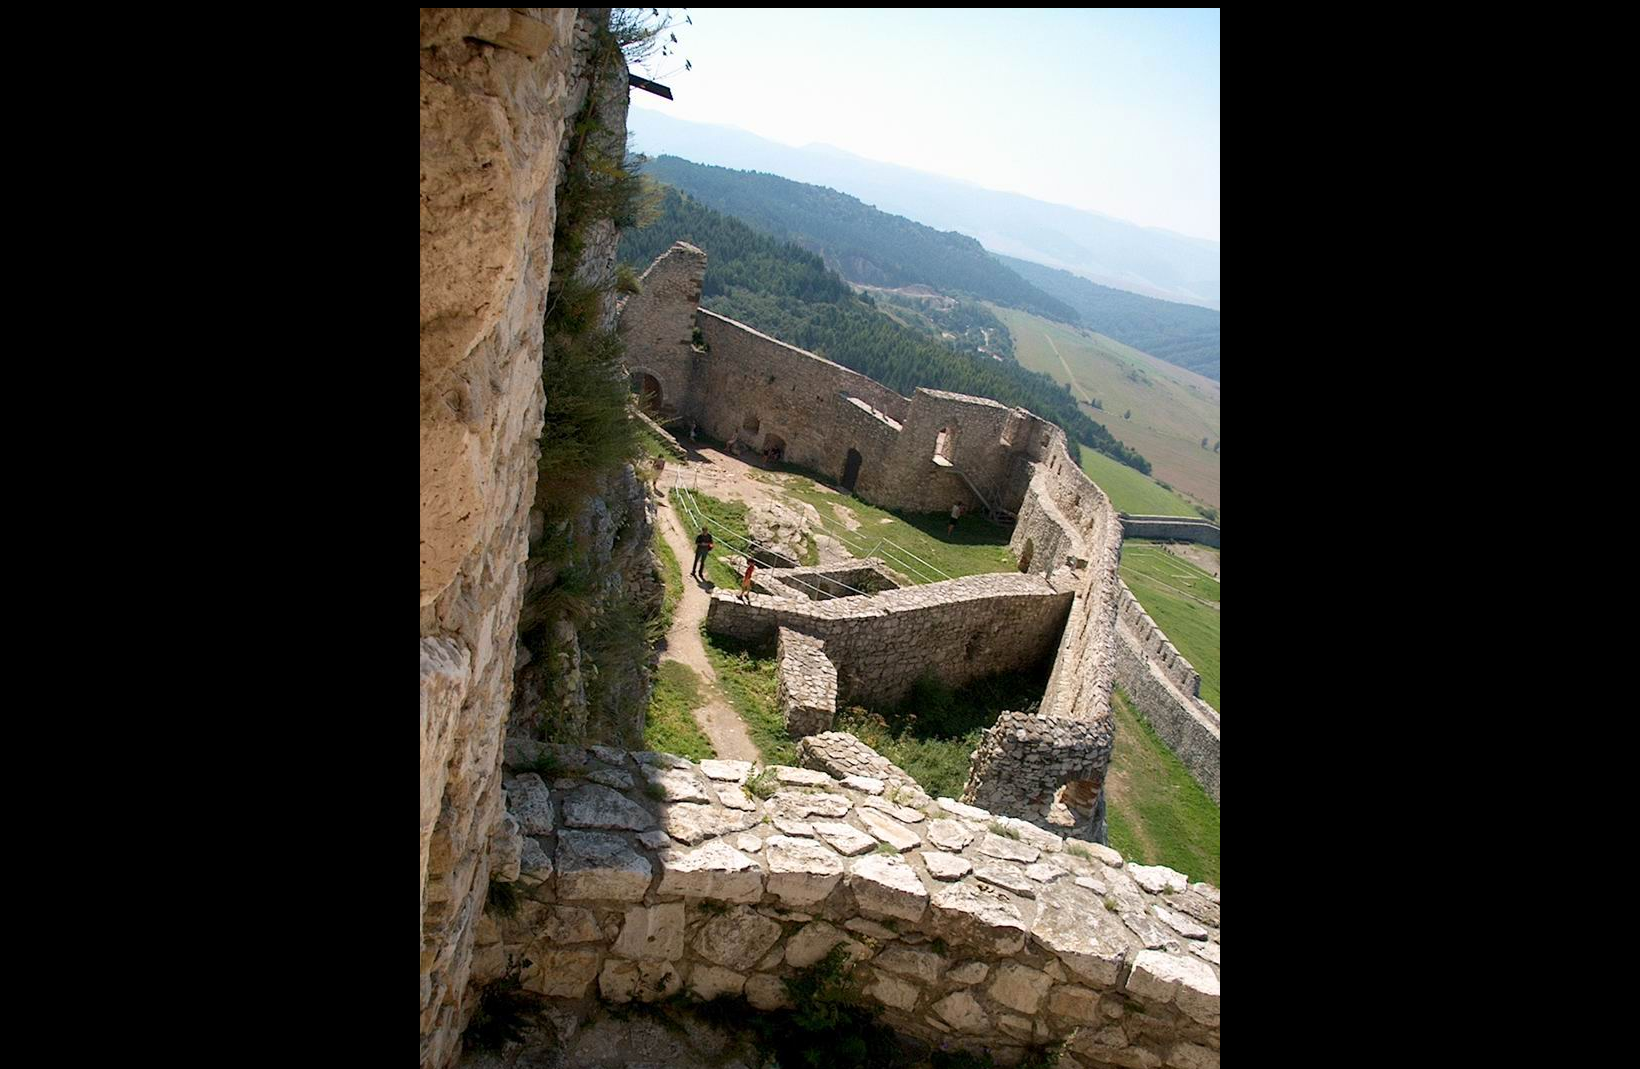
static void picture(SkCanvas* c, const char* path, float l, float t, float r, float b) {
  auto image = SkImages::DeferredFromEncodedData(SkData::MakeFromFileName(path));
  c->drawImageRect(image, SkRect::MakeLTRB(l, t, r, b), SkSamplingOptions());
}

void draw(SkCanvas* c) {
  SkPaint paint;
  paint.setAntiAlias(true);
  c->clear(0xff000000);
  picture(c, "img_01.png", 420, 8, 1220, 1069);
}
